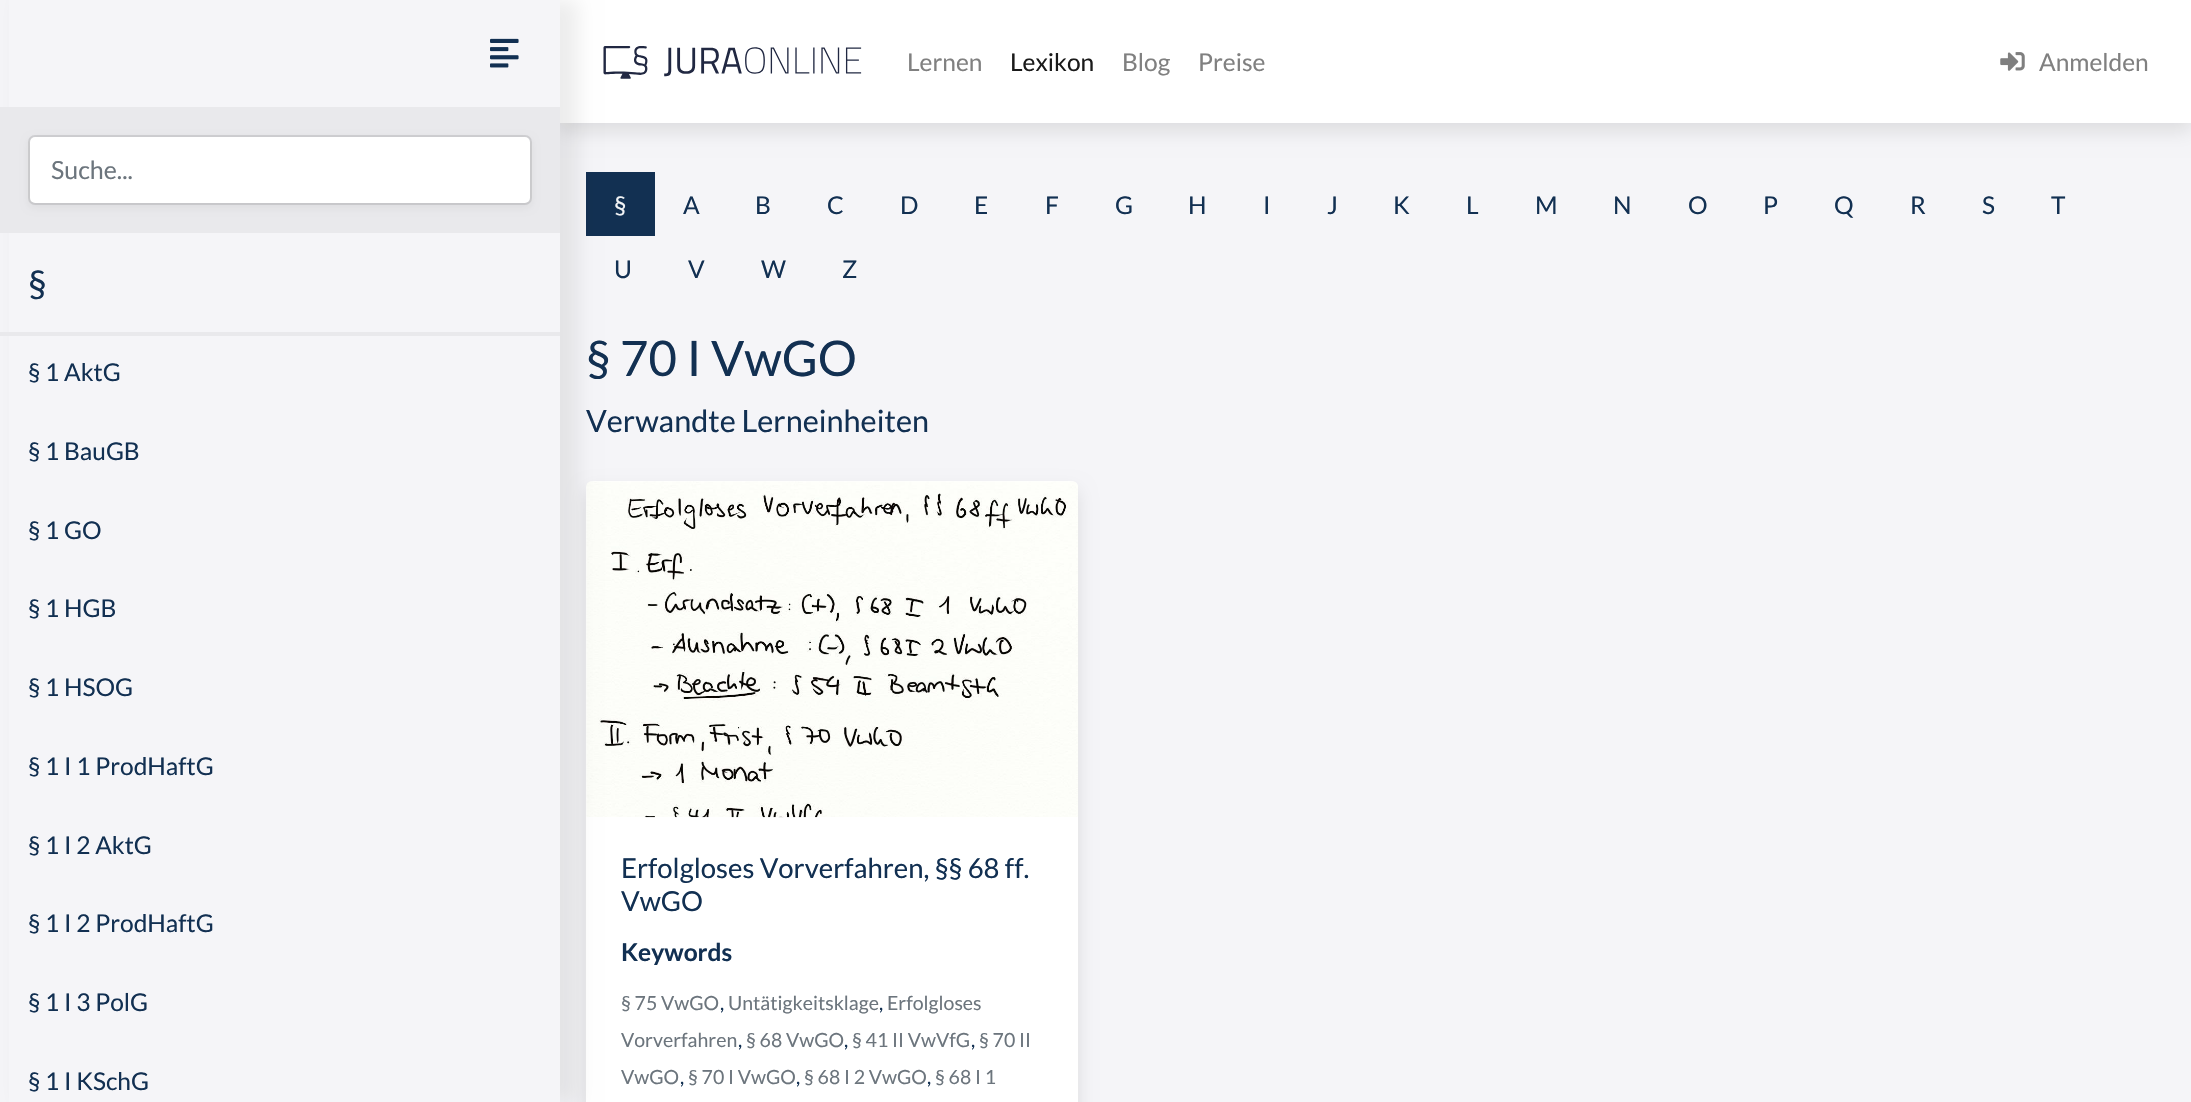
static SkFont makeFont(const char* family, int weight, float size, bool italic = false) {
  SkFontStyle style(weight, SkFontStyle::kNormal_Width,
    italic ? SkFontStyle::kItalic_Slant : SkFontStyle::kUpright_Slant);
  SkFont result(fontMgr->matchFamilyStyle(family, style), size);
  result.setSubpixel(true);
  return result;
}

static void text(SkCanvas* c, const char* s, float x, float y, const SkFont& font, SkColor color) {
  SkPaint ink(SkColor4f::FromColor(color));
  ink.setAntiAlias(true);
  c->drawString(s, x, y, font, ink);
}

static void box(SkCanvas* c, float l, float t, float r, float b, SkColor color) {
  SkPaint ink(SkColor4f::FromColor(color));
  ink.setAntiAlias(true);
  c->drawRect(SkRect::MakeLTRB(l, t, r, b), ink);
}

static void roundBox(SkCanvas* c, float l, float t, float r, float b, float radius, SkColor color) {
  SkPaint ink(SkColor4f::FromColor(color));
  ink.setAntiAlias(true);
  c->drawRoundRect(SkRect::MakeLTRB(l, t, r, b), radius, radius, ink);
}

static void picture(SkCanvas* c, const char* path, float l, float t, float r, float b) {
  auto image = SkImages::DeferredFromEncodedData(SkData::MakeFromFileName(path));
  c->drawImageRect(image, SkRect::MakeLTRB(l, t, r, b), SkSamplingOptions());
}

void draw(SkCanvas* c) {
  SkPaint paint;
  paint.setAntiAlias(true);
  c->clear(0xfff5f5f8);
  paint.setColor(0x1a000000);
  paint.setMaskFilter(SkMaskFilter::MakeBlur(kNormal_SkBlurStyle, 9));
  c->drawRect(SkRect::MakeLTRB(560, 9, 2191, 131), paint);
  paint.setMaskFilter(nullptr);
  box(c, 560, 0, 2191, 123, 0xffffffff);
  picture(c, "img_02.png", 603, 46, 862, 79);
  box(c, 586, 172, 655, 236, 0xff123052);
  paint.setMaskFilter(SkMaskFilter::MakeBlur(kNormal_SkBlurStyle, 9));
  c->drawRoundRect(SkRect::MakeLTRB(586, 490, 1078, 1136), 7, 7, paint);
  paint.setMaskFilter(nullptr);
  paint.setColor(0xffffffff);
  c->drawPath(SkPathBuilder().moveTo(593, 481).lineTo(1071, 481).cubicTo(1075, 481, 1078, 484, 1078, 488).lineTo(1078, 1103).lineTo(586, 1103).lineTo(586, 488).cubicTo(586, 484, 589, 481, 593, 481).close().detach(), paint);
  picture(c, "img_04.png", 586, 481, 1078, 818);
  paint.setColor(0x12000000);
  paint.setMaskFilter(SkMaskFilter::MakeBlur(kNormal_SkBlurStyle, 9));
  c->drawRect(SkRect::MakeLTRB(18, 0, 578, 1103), paint);
  paint.setMaskFilter(nullptr);
  box(c, 9, 0, 560, 1102, 0xfff5f5f8);
  picture(c, "img_01.png", 490, 38, 519, 68);
  box(c, 0, 107, 560, 233, 0xffe9e9ec);
  paint.setColor(0x0d000000);
  paint.setMaskFilter(SkMaskFilter::MakeBlur(kNormal_SkBlurStyle, 3.5f));
  c->drawRoundRect(SkRect::MakeLTRB(28, 138, 532, 208), 7, 7, paint);
  paint.setMaskFilter(nullptr);
  roundBox(c, 30, 137, 530, 203, 5, 0xffffffff);
  paint.setStyle(SkPaint::kStroke_Style);
  paint.setStrokeWidth(2);
  paint.setColor(0x1a000000);
  c->drawRoundRect(SkRect::MakeLTRB(29, 136, 531, 204), 6, 6, paint);
  SkFont face1 = makeFont("Lato", 400, 25);
  text(c, "Suche...", 51, 179, face1, 0xff6c757d);
  box(c, 0, 332, 560, 336, 0xffe9e9ec);
  SkFont face2 = makeFont("Lato", 400, 37);
  text(c, "§", 28, 297, face2, 0xff123052);
  SkFont face3 = makeFont("Lato", 400, 24.5f);
  text(c, "§ 1 AktG", 28, 381, face3, 0xff123052);
  text(c, "§ 1 BauGB", 28, 460, face3, 0xff123052);
  text(c, "§ 1 GO", 28, 539, face3, 0xff123052);
  text(c, "§ 1 HGB", 28, 617, face3, 0xff123052);
  text(c, "§ 1 HSOG", 28, 696, face3, 0xff123052);
  text(c, "§ 1 I 1 ProdHaftG", 28, 775, face3, 0xff123052);
  text(c, "§ 1 I 2 AktG", 28, 854, face3, 0xff123052);
  text(c, "§ 1 I 2 ProdHaftG", 28, 932, face3, 0xff123052);
  text(c, "§ 1 I 3 PolG", 28, 1011, face3, 0xff123052);
  text(c, "§ 1 I KSchG", 28, 1090, face3, 0xff123052);
  text(c, "Lernen", 907, 71, face3, 0xff808080);
  text(c, "Lexikon", 1010, 71, face3, 0xff1a1a1a);
  text(c, "Blog", 1122, 71, face3, 0xff808080);
  text(c, "Preise", 1198, 71, face3, 0xff808080);
  picture(c, "img_03.png", 2000, 52, 2025, 71);
  text(c, "Anmelden", 2039, 71, face3, 0xff808080);
  text(c, "§", 614, 214, face3, 0xfff2f4f6);
  text(c, "A", 683, 214, face3, 0xff123052);
  text(c, "B", 755, 214, face3, 0xff123052);
  text(c, "C", 827, 214, face3, 0xff123052);
  text(c, "D", 900, 214, face3, 0xff123052);
  text(c, "E", 974, 214, face3, 0xff123052);
  text(c, "F", 1045, 214, face3, 0xff123052);
  text(c, "G", 1115, 214, face3, 0xff123052);
  text(c, "H", 1188, 214, face3, 0xff123052);
  text(c, "I", 1263, 214, face3, 0xff123052);
  text(c, "J", 1327, 214, face3, 0xff123052);
  text(c, "K", 1393, 214, face3, 0xff123052);
  text(c, "L", 1466, 214, face3, 0xff123052);
  text(c, "M", 1535, 214, face3, 0xff123052);
  text(c, "N", 1613, 214, face3, 0xff123052);
  text(c, "O", 1688, 214, face3, 0xff123052);
  text(c, "P", 1763, 214, face3, 0xff123052);
  text(c, "Q", 1834, 214, face3, 0xff123052);
  text(c, "R", 1910, 214, face3, 0xff123052);
  text(c, "S", 1982, 214, face3, 0xff123052);
  text(c, "T", 2051, 214, face3, 0xff123052);
  text(c, "U", 614, 278, face3, 0xff123052);
  text(c, "V", 688, 278, face3, 0xff123052);
  text(c, "W", 761, 278, face3, 0xff123052);
  text(c, "Z", 842, 278, face3, 0xff123052);
  SkFont face4 = makeFont("Lato", 400, 49);
  text(c, "§ 70 I VwGO", 586, 376, face4, 0xff123052);
  SkFont face5 = makeFont("Lato", 400, 30.6f);
  text(c, "Verwandte Lerneinheiten", 586, 432, face5, 0xff123052);
  SkFont face6 = makeFont("Lato", 400, 27.5f);
  text(c, "Erfolgloses Vorverfahren, §§ 68 ff.", 621, 878, face6, 0xff123052);
  text(c, "VwGO", 621, 911, face6, 0xff123052);
  SkFont face7 = makeFont("Lato", 700, 24.5f);
  text(c, "Keywords", 621, 961, face7, 0xff123052);
  SkFont face8 = makeFont("Lato", 400, 19.5f);
  text(c, "§ 75 VwGO", 621, 1010, face8, 0xff6c757d);
  text(c, ",", 720, 1010, face8, 0xff123052);
  text(c, "Untätigkeitsklage", 728, 1010, face8, 0xff6c757d);
  text(c, ",", 879, 1010, face8, 0xff123052);
  text(c, "Erfolgloses", 887, 1010, face8, 0xff6c757d);
  text(c, "Vorverfahren", 621, 1047, face8, 0xff6c757d);
  text(c, ",", 738, 1047, face8, 0xff123052);
  text(c, "§ 68 VwGO", 746, 1047, face8, 0xff6c757d);
  text(c, ",", 844, 1047, face8, 0xff123052);
  text(c, "§ 41 II VwVfG", 852, 1047, face8, 0xff6c757d);
  text(c, ",", 971, 1047, face8, 0xff123052);
  text(c, "§ 70 II", 979, 1047, face8, 0xff6c757d);
  text(c, "VwGO", 621, 1084, face8, 0xff6c757d);
  text(c, ",", 680, 1084, face8, 0xff123052);
  text(c, "§ 70 I VwGO", 688, 1084, face8, 0xff6c757d);
  text(c, ",", 796, 1084, face8, 0xff123052);
  text(c, "§ 68 I 2 VwGO", 804, 1084, face8, 0xff6c757d);
  text(c, ",", 927, 1084, face8, 0xff123052);
  text(c, "§ 68 I 1", 935, 1084, face8, 0xff6c757d);
}
